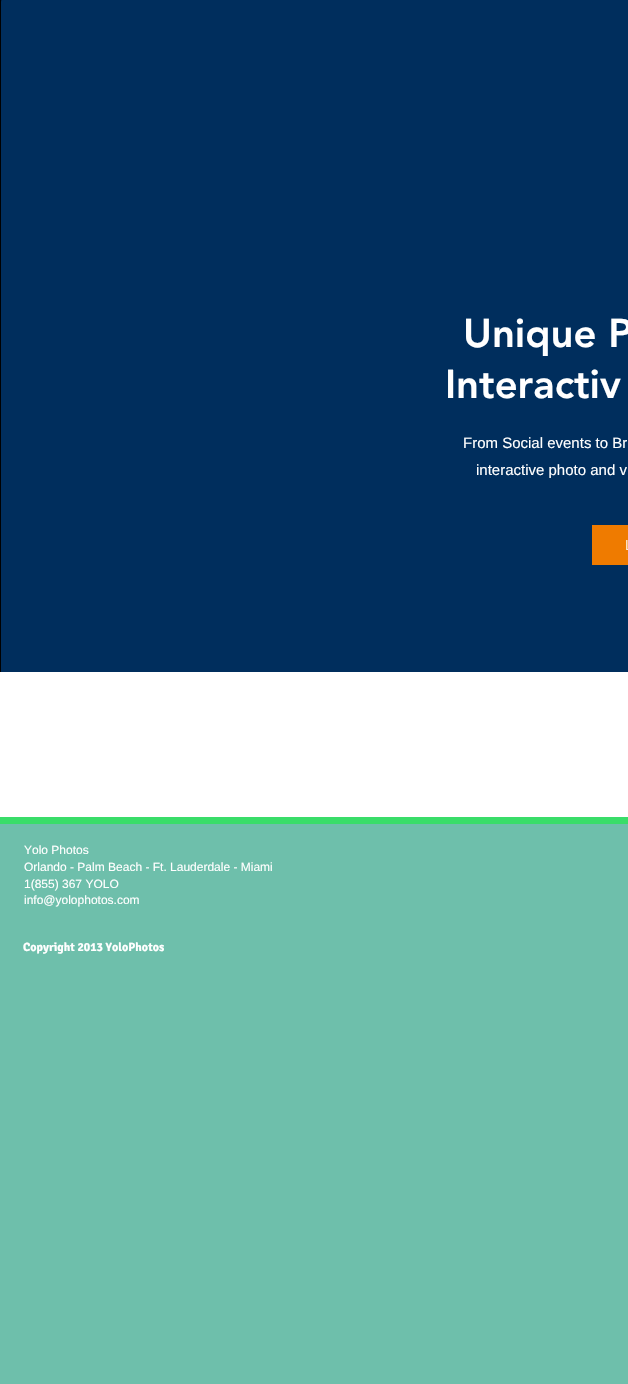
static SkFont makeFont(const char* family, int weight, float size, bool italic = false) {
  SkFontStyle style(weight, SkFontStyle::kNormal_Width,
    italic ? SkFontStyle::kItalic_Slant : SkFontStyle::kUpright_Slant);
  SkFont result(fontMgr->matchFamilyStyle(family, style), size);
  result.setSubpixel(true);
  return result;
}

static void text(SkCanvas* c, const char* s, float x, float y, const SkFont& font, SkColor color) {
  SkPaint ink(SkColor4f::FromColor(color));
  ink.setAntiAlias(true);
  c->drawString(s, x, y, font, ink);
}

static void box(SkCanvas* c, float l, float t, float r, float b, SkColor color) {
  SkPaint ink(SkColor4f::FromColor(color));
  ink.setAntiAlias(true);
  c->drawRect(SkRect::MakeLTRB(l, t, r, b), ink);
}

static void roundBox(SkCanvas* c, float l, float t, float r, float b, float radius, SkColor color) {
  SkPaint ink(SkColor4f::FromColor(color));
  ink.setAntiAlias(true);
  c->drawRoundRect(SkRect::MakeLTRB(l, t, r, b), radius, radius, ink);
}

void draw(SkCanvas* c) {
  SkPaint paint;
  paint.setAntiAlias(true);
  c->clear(0xffffffff);
  box(c, 0, 0, 2, 672, 0xff000000);
  roundBox(c, 1, -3, 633, 816, 5, 0xff002e5d);
  SkFont face1 = makeFont("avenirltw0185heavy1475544", 900, 40);
  text(c, "Unique P", 463, 347, face1, 0xffffffff);
  text(c, "Interactiv", 445, 398, face1, 0xffffffff);
  SkFont face2 = makeFont("Liberation Sans", 400, 15);
  text(c, "From Social events to Br", 463, 448, face2, 0xffffffff);
  text(c, "interactive photo and v", 476, 475, face2, 0xffffffff);
  box(c, 592, 525, 628, 565, 0xffef7b00);
  SkFont face3 = makeFont("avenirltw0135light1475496", 300, 14);
  text(c, "L", 625, 550, face3, 0xffffffff);
  box(c, 1, 672, 628, 816, 0xffffffff);
  box(c, 0, 817, 628, 824, 0xff39dd69);
  box(c, 0, 824, 628, 1384, 0xff6ebfab);
  SkFont face4 = makeFont("Liberation Sans", 400, 12);
  text(c, "Yolo Photos", 24, 854, face4, 0xffffffff);
  text(c, "Orlando - Palm Beach - Ft. Lauderdale - Miami", 24, 871, face4, 0xffffffff);
  text(c, "1(855) 367 YOLO", 24, 888, face4, 0xffffffff);
  text(c, "info@yolophotos.com", 24, 904, face4, 0xffffffff);
  SkFont face5 = makeFont("Signika", 700, 12);
  text(c, "Copyright 2013 YoloPhotos", 23, 951, face5, 0xffffffff);
}
